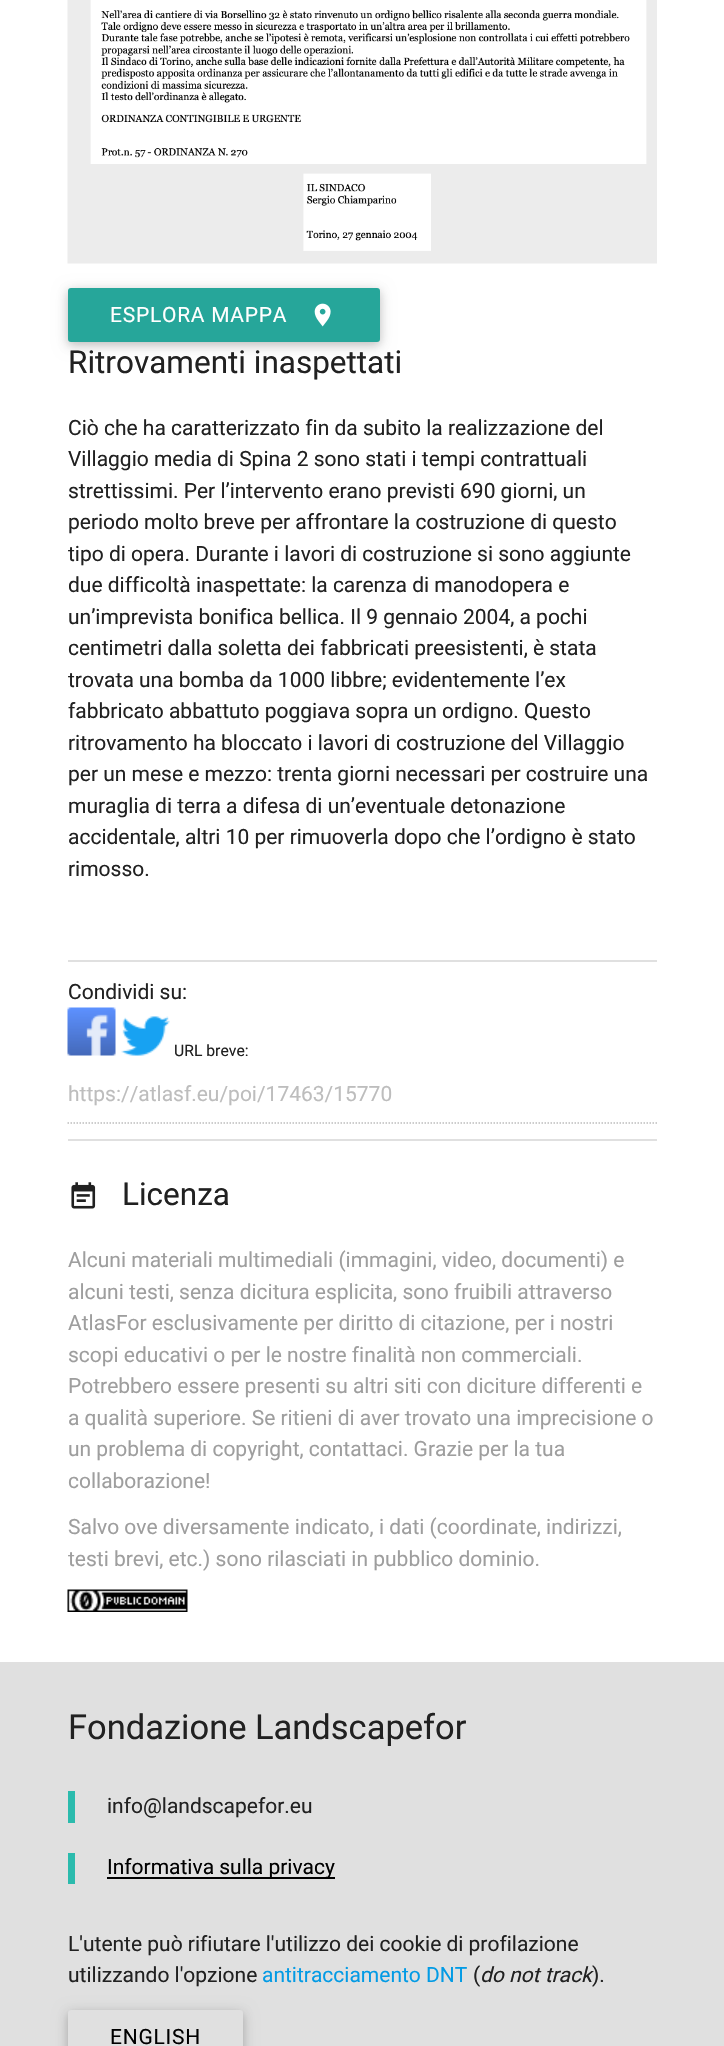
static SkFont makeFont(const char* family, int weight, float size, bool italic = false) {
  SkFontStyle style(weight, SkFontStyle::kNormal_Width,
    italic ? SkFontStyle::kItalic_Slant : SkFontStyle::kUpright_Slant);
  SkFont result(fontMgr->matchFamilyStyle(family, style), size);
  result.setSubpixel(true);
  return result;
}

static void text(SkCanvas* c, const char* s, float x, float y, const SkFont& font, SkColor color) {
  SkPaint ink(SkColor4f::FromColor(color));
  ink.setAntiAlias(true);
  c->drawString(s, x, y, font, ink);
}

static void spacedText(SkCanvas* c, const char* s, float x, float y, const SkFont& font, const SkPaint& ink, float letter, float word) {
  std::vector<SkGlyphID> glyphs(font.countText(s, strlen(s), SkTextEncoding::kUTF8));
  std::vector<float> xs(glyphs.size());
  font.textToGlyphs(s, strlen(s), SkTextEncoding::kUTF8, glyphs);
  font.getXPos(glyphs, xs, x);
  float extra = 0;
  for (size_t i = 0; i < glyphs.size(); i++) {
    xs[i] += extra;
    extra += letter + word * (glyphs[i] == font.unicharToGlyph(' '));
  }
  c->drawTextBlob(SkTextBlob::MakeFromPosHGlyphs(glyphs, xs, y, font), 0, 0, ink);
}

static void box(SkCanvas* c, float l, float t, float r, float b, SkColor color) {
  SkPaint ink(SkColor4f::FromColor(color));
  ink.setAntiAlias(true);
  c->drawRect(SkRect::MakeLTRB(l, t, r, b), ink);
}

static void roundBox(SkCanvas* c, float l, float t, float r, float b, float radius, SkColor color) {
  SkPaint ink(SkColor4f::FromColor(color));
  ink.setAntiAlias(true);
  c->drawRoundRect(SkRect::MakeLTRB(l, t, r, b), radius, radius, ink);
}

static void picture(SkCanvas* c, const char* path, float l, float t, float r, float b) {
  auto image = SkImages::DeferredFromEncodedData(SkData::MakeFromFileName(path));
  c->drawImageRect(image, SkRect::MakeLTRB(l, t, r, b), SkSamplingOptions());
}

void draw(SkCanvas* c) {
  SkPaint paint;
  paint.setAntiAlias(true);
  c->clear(0xffffffff);
  picture(c, "img_01.png", 67, 0, 657, 264);
  paint.setColor(0x1f000000);
  paint.setMaskFilter(SkMaskFilter::MakeBlur(kNormal_SkBlurStyle, 7.5f));
  c->drawRoundRect(SkRect::MakeLTRB(68, 291, 380, 345), 3, 3, paint);
  paint.setMaskFilter(nullptr);
  paint.setColor(0x29000000);
  paint.setMaskFilter(SkMaskFilter::MakeBlur(kNormal_SkBlurStyle, 4));
  c->drawRoundRect(SkRect::MakeLTRB(68, 291, 380, 345), 3, 3, paint);
  paint.setMaskFilter(nullptr);
  roundBox(c, 68, 288, 380, 342, 3, 0xff26a69a);
  SkFont face1 = makeFont("Roboto", 400, 21);
  paint.setColor(0xffffffff);
  spacedText(c, "ESPLORA MAPPA", 110, 322, face1, paint, 0.75f, 0);
  picture(c, "img_02.png", 314, 303, 331, 327);
  SkFont face2 = makeFont("Roboto", 400, 31.5f);
  text(c, "Ritrovamenti inaspettati", 68, 373, face2, 0xff212121);
  text(c, "Ciò che ha caratterizzato fin da subito la realizzazione del", 68, 435, face1, 0xff212121);
  text(c, "Villaggio media di Spina 2 sono stati i tempi contrattuali", 68, 466, face1, 0xff212121);
  text(c, "strettissimi. Per l’intervento erano previsti 690 giorni, un", 68, 498, face1, 0xff212121);
  text(c, "periodo molto breve per affrontare la costruzione di questo", 68, 529, face1, 0xff212121);
  text(c, "tipo di opera. Durante i lavori di costruzione si sono aggiunte", 68, 561, face1, 0xff212121);
  text(c, "due difficoltà inaspettate: la carenza di manodopera e", 68, 592, face1, 0xff212121);
  text(c, "un’imprevista bonifica bellica. Il 9 gennaio 2004, a pochi", 68, 624, face1, 0xff212121);
  text(c, "centimetri dalla soletta dei fabbricati preesistenti, è stata", 68, 655, face1, 0xff212121);
  text(c, "trovata una bomba da 1000 libbre; evidentemente l’ex", 68, 687, face1, 0xff212121);
  text(c, "fabbricato abbattuto poggiava sopra un ordigno. Questo", 68, 718, face1, 0xff212121);
  text(c, "ritrovamento ha bloccato i lavori di costruzione del Villaggio", 68, 750, face1, 0xff212121);
  text(c, "per un mese e mezzo: trenta giorni necessari per costruire una", 68, 781, face1, 0xff212121);
  text(c, "muraglia di terra a difesa di un’eventuale detonazione", 68, 813, face1, 0xff212121);
  text(c, "accidentale, altri 10 per rimuoverla dopo che l’ordigno è stato", 68, 844, face1, 0xff212121);
  text(c, "rimosso.", 68, 876, face1, 0xff212121);
  box(c, 68, 960, 657, 962, 0xffe0e0e0);
  text(c, "Condividi su:", 68, 999, face1, 0xff212121);
  picture(c, "img_03.png", 67, 1007, 116, 1056);
  picture(c, "img_04.png", 121, 1016, 170, 1056);
  SkFont face3 = makeFont("Roboto", 400, 15.75f);
  text(c, "URL breve:", 174, 1056, face3, 0xff212121);
  paint.setStyle(SkPaint::kStroke_Style);
  paint.setStrokeWidth(1.5f);
  paint.setColor(0xffbdbdbd);
  paint.setPathEffect(SkDashPathEffect::Make({{1.5f, 1.5f}}, 0));
  c->drawPath(SkPathBuilder().moveTo(67.5f, 1123).lineTo(657, 1123).detach(), paint);
  paint.setPathEffect(nullptr);
  text(c, "https://atlasf.eu/poi/17463/15770", 68, 1101, face1, 0xffbdbdbd);
  box(c, 68, 1139, 657, 1141, 0xffe0e0e0);
  picture(c, "img_05.png", 71, 1182, 96, 1209);
  text(c, "Licenza", 122, 1205, face2, 0xff212121);
  text(c, "Alcuni materiali multimediali (immagini, video, documenti) e", 68, 1267, face1, 0xff9e9e9e);
  text(c, "alcuni testi, senza dicitura esplicita, sono fruibili attraverso", 68, 1299, face1, 0xff9e9e9e);
  text(c, "AtlasFor esclusivamente per diritto di citazione, per i nostri", 68, 1330, face1, 0xff9e9e9e);
  text(c, "scopi educativi o per le nostre finalità non commerciali.", 68, 1362, face1, 0xff9e9e9e);
  text(c, "Potrebbero essere presenti su altri siti con diciture differenti e", 68, 1393, face1, 0xff9e9e9e);
  text(c, "a qualità superiore. Se ritieni di aver trovato una imprecisione o", 68, 1425, face1, 0xff9e9e9e);
  text(c, "un problema di copyright, contattaci. Grazie per la tua", 68, 1456, face1, 0xff9e9e9e);
  text(c, "collaborazione!", 68, 1488, face1, 0xff9e9e9e);
  text(c, "Salvo ove diversamente indicato, i dati (coordinate, indirizzi,", 68, 1534, face1, 0xff9e9e9e);
  text(c, "testi brevi, etc.) sono rilasciati in pubblico dominio.", 68, 1566, face1, 0xff9e9e9e);
  picture(c, "img_06.png", 67, 1589, 188, 1612);
  box(c, 0, 1662, 724, 2046, 0xffe0e0e0);
  SkFont face4 = makeFont("Roboto", 400, 34.5f);
  text(c, "Fondazione Landscapefor", 68, 1739, face4, 0xff212121);
  box(c, 68, 1791, 75, 1823, 0xff2bbbad);
  text(c, "info@landscapefor.eu", 107, 1813, face1, 0xff212121);
  box(c, 68, 1853, 75, 1884, 0xff2bbbad);
  box(c, 107, 1877, 335, 1879, 0xff000000);
  text(c, "Informativa sulla privacy", 107, 1874, face1, 0xff000000);
  text(c, "L'utente può rifiutare l'utilizzo dei cookie di profilazione", 68, 1951, face1, 0xff212121);
  text(c, "utilizzando l'opzione", 68, 1982, face1, 0xff212121);
  text(c, "antitracciamento DNT", 262, 1982, face1, 0xff039be5);
  text(c, "(", 473, 1982, face1, 0xff212121);
  SkFont face5 = makeFont("Roboto", 400, 21, true);
  text(c, "do not track", 480, 1982, face5, 0xff212121);
  text(c, ").", 592, 1982, face1, 0xff212121);
  paint.setStyle(SkPaint::kFill_Style);
  paint.setColor(0x1f000000);
  paint.setMaskFilter(SkMaskFilter::MakeBlur(kNormal_SkBlurStyle, 7.5f));
  c->drawRoundRect(SkRect::MakeLTRB(68, 2013, 243, 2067), 3, 3, paint);
  paint.setMaskFilter(nullptr);
  paint.setColor(0x29000000);
  paint.setMaskFilter(SkMaskFilter::MakeBlur(kNormal_SkBlurStyle, 4));
  c->drawRoundRect(SkRect::MakeLTRB(68, 2013, 243, 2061), 3, 3, paint);
  paint.setMaskFilter(nullptr);
  roundBox(c, 68, 2010, 243, 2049, 3, 0xffe0e0e0);
  paint.setColor(0xff000000);
  spacedText(c, "ENGLISH", 110, 2044, face1, paint, 0.75f, 0);
}
